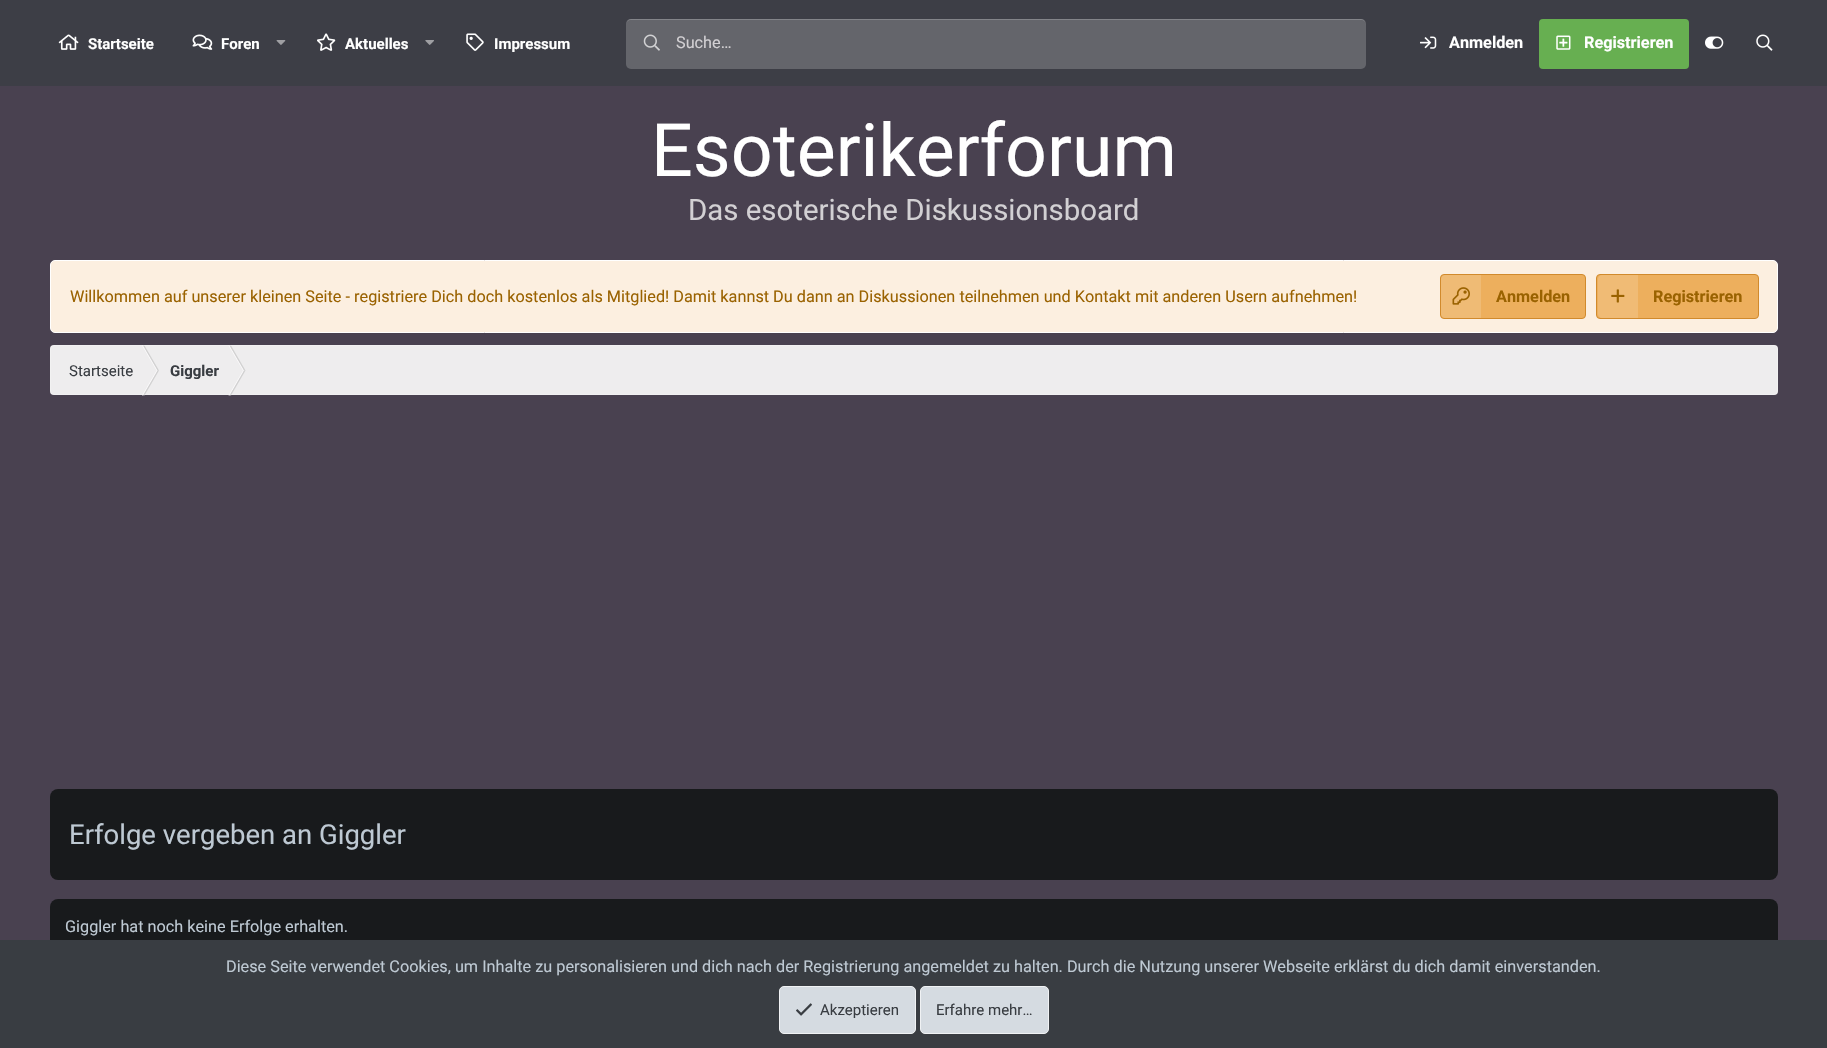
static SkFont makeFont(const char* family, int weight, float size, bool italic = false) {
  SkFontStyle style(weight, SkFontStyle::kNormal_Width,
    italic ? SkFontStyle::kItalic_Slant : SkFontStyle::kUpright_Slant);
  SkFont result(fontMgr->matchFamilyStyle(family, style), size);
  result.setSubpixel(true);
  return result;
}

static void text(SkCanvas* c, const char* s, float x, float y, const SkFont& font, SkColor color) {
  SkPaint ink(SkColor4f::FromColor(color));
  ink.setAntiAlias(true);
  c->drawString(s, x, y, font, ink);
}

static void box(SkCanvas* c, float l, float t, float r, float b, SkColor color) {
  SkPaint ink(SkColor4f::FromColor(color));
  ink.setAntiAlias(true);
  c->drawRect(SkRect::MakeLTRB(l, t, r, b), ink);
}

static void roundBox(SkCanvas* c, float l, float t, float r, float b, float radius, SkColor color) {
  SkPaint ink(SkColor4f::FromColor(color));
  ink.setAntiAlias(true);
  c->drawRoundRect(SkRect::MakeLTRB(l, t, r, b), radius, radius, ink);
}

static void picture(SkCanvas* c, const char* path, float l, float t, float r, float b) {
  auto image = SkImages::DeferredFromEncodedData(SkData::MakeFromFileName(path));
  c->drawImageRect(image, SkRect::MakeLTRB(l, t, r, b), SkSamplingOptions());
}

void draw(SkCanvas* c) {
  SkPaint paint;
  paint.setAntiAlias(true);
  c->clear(0xff494150);
  box(c, 0, 0, 1827, 86, 0xff3d3e46);
  picture(c, "img_01.png", 58, 34, 79, 50);
  SkFont face1 = makeFont("Roboto", 700, 15);
  text(c, "Startseite", 88, 49, face1, 0xffffffff);
  picture(c, "img_02.png", 192, 34, 213, 50);
  text(c, "Foren", 221, 49, face1, 0xffffffff);
  picture(c, "img_03.png", 276, 40, 286, 45);
  picture(c, "img_04.png", 317, 33, 336, 51);
  text(c, "Aktuelles", 345, 49, face1, 0xffffffff);
  picture(c, "img_05.png", 425, 40, 434, 45);
  picture(c, "img_06.png", 466, 33, 484, 51);
  text(c, "Impressum", 494, 49, face1, 0xffffffff);
  roundBox(c, 626, 19, 1366, 69, 5, 0xff64656b);
  paint.setColor(0x33ffffff);
  c->drawPath(SkPathBuilder().moveTo(631, 20).lineTo(1361, 20).cubicTo(1364, 20, 1366, 22, 1366, 25).cubicTo(1366, 22, 1364, 19, 1361, 19).lineTo(631, 19).cubicTo(628, 19, 626, 22, 626, 25).cubicTo(626, 22, 628, 20, 631, 20).close().detach(), paint);
  picture(c, "img_07.png", 643, 34, 660, 51);
  SkFont face2 = makeFont("Roboto", 400, 16.25f);
  text(c, "Suche…", 676, 48, face2, 0xffd2d0d3);
  picture(c, "img_08.png", 1420, 36, 1437, 49);
  SkFont face3 = makeFont("Roboto", 700, 16.25f);
  text(c, "Anmelden", 1449, 48, face3, 0xffffffff);
  roundBox(c, 1539, 19, 1689, 69, 4, 0xff67af51);
  picture(c, "img_09.png", 1556, 35, 1571, 50);
  text(c, "Registrieren", 1584, 48, face3, 0xffffffff);
  picture(c, "img_10.png", 1705, 36, 1724, 49);
  picture(c, "img_11.png", 1756, 34, 1773, 51);
  SkFont face4 = makeFont("Roboto", 400, 73.5f);
  text(c, "Esoterikerforum", 651, 176, face4, 0xffffffff);
  SkFont face5 = makeFont("Roboto", 400, 29.4f);
  text(c, "Das esoterische Diskussionsboard", 688, 220, face5, 0xffd2d0d3);
  paint.setColor(0xfffcefe0);
  c->drawRoundRect(SkRect::MakeLTRB(50.5f, 260.5f, 1777.5f, 332.5f), 4.5f, 4.5f, paint);
  paint.setStyle(SkPaint::kStroke_Style);
  paint.setStrokeWidth(1);
  paint.setColor(0xffffffff);
  c->drawRoundRect(SkRect::MakeLTRB(50.5f, 260.5f, 1777.5f, 332.5f), 4.5f, 4.5f, paint);
  text(c, "Willkommen auf unserer kleinen Seite - registriere Dich doch kostenlos als Mitglied! Damit kannst Du dann an Diskussionen teilnehmen und Kontakt mit anderen Usern aufnehmen!", 70, 302, face2, 0xff9a6200);
  paint.setStyle(SkPaint::kFill_Style);
  paint.setColor(0xffedaf5d);
  c->drawRoundRect(SkRect::MakeLTRB(1440.5f, 274.5f, 1585.5f, 318.5f), 3.5f, 3.5f, paint);
  paint.setStyle(SkPaint::kStroke_Style);
  paint.setColor(0xffd18a2c);
  c->drawRoundRect(SkRect::MakeLTRB(1440.5f, 274.5f, 1585.5f, 318.5f), 3.5f, 3.5f, paint);
  paint.setStyle(SkPaint::kFill_Style);
  paint.setColor(0x26ffffff);
  c->drawPath(SkPathBuilder().moveTo(1445, 275).lineTo(1481, 275).lineTo(1481, 318).lineTo(1445, 318).cubicTo(1443, 318, 1441, 316, 1441, 314).lineTo(1441, 279).cubicTo(1441, 277, 1443, 275, 1445, 275).close().detach(), paint);
  picture(c, "img_12.png", 1452, 287, 1470, 305);
  text(c, "Anmelden", 1496, 302, face3, 0xff9a6200);
  paint.setColor(0xffedaf5d);
  c->drawRoundRect(SkRect::MakeLTRB(1596.5f, 274.5f, 1758.5f, 318.5f), 3.5f, 3.5f, paint);
  paint.setStyle(SkPaint::kStroke_Style);
  paint.setColor(0xffd18a2c);
  c->drawRoundRect(SkRect::MakeLTRB(1596.5f, 274.5f, 1758.5f, 318.5f), 3.5f, 3.5f, paint);
  paint.setStyle(SkPaint::kFill_Style);
  paint.setColor(0xfff0bb75);
  c->drawPath(SkPathBuilder().moveTo(1602, 275).lineTo(1638, 275).lineTo(1638, 318).lineTo(1602, 318).cubicTo(1600, 318, 1598, 316, 1598, 314).lineTo(1598, 279).cubicTo(1598, 277, 1600, 275, 1602, 275).close().detach(), paint);
  picture(c, "img_13.png", 1611, 289, 1625, 303);
  text(c, "Registrieren", 1653, 302, face3, 0xff9a6200);
  roundBox(c, 50, 345, 1778, 395, 4, 0xffeeedee);
  paint.setColor(0xfffcfbfc);
  c->drawPath(SkPathBuilder().moveTo(142, 345.5f).lineTo(143, 345.5f).lineTo(157.5f, 370.5f).lineTo(156.5f, 370.5f).close().detach(), paint);
  paint.setColor(0xccc9c9c9);
  c->drawPath(SkPathBuilder().moveTo(143, 345.5f).lineTo(144.5f, 345.5f).lineTo(159, 370.5f).lineTo(157.5f, 370.5f).close().detach(), paint);
  paint.setColor(0xfffcfbfc);
  c->drawPath(SkPathBuilder().moveTo(156.5f, 370.5f).lineTo(157.5f, 370.5f).lineTo(143, 395.5f).lineTo(142, 395.5f).close().detach(), paint);
  paint.setColor(0xccc9c9c9);
  c->drawPath(SkPathBuilder().moveTo(157.5f, 370.5f).lineTo(159, 370.5f).lineTo(144.5f, 395.5f).lineTo(143, 395.5f).close().detach(), paint);
  paint.setColor(0xfffcfbfc);
  c->drawPath(SkPathBuilder().moveTo(228.5f, 345.5f).lineTo(229.5f, 345.5f).lineTo(244, 370.5f).lineTo(243, 370.5f).close().detach(), paint);
  paint.setColor(0xccc9c9c9);
  c->drawPath(SkPathBuilder().moveTo(229.5f, 345.5f).lineTo(231, 345.5f).lineTo(245.5f, 370.5f).lineTo(244, 370.5f).close().detach(), paint);
  paint.setColor(0xfffcfbfc);
  c->drawPath(SkPathBuilder().moveTo(243, 370.5f).lineTo(244, 370.5f).lineTo(229.5f, 395.5f).lineTo(228.5f, 395.5f).close().detach(), paint);
  paint.setColor(0xccc9c9c9);
  c->drawPath(SkPathBuilder().moveTo(244, 370.5f).lineTo(245.5f, 370.5f).lineTo(231, 395.5f).lineTo(229.5f, 395.5f).close().detach(), paint);
  paint.setStyle(SkPaint::kStroke_Style);
  paint.setColor(0x40ffffff);
  c->drawRoundRect(SkRect::MakeLTRB(50.5f, 345.5f, 1777.5f, 394.5f), 3.5f, 3.5f, paint);
  SkFont face6 = makeFont("Roboto", 400, 15);
  text(c, "Startseite", 69, 376, face6, 0xff393d42);
  text(c, "Giggler", 170, 376, face1, 0xff393d42);
  roundBox(c, 50, 789, 1778, 880, 8, 0xf2151718);
  SkFont face7 = makeFont("Roboto", 400, 27.5f);
  text(c, "Erfolge vergeben an Giggler", 69, 844, face7, 0xffbec9d3);
  roundBox(c, 50, 899, 1778, 1033, 8, 0xf2151718);
  text(c, "Giggler hat noch keine Erfolge erhalten.", 65, 932, face2, 0xffbec9d3);
  box(c, 0, 940, 1827, 1048, 0xff393d42);
  text(c, "Diese Seite verwendet Cookies, um Inhalte zu personalisieren und dich nach der Registrierung angemeldet zu halten. Durch die Nutzung unserer Webseite erklärst du dich damit einverstanden.", 226, 972, face2, 0xffbec9d3);
  paint.setStyle(SkPaint::kFill_Style);
  paint.setColor(0xffd5dbe1);
  c->drawRoundRect(SkRect::MakeLTRB(779.5f, 986.5f, 915.5f, 1033.5f), 4.5f, 4.5f, paint);
  paint.setStyle(SkPaint::kStroke_Style);
  paint.setColor(0xfff0f2f4);
  c->drawRoundRect(SkRect::MakeLTRB(779.5f, 986.5f, 915.5f, 1033.5f), 4.5f, 4.5f, paint);
  picture(c, "img_14.png", 796, 1003, 812, 1016);
  text(c, "Akzeptieren", 820, 1015, face6, 0xff393d42);
  paint.setStyle(SkPaint::kFill_Style);
  paint.setColor(0xffd5dbe1);
  c->drawRoundRect(SkRect::MakeLTRB(920.5f, 986.5f, 1048.5f, 1033.5f), 4.5f, 4.5f, paint);
  paint.setStyle(SkPaint::kStroke_Style);
  paint.setColor(0xfff0f2f4);
  c->drawRoundRect(SkRect::MakeLTRB(920.5f, 986.5f, 1048.5f, 1033.5f), 4.5f, 4.5f, paint);
  text(c, "Erfahre mehr…", 936, 1015, face6, 0xff393d42);
}
